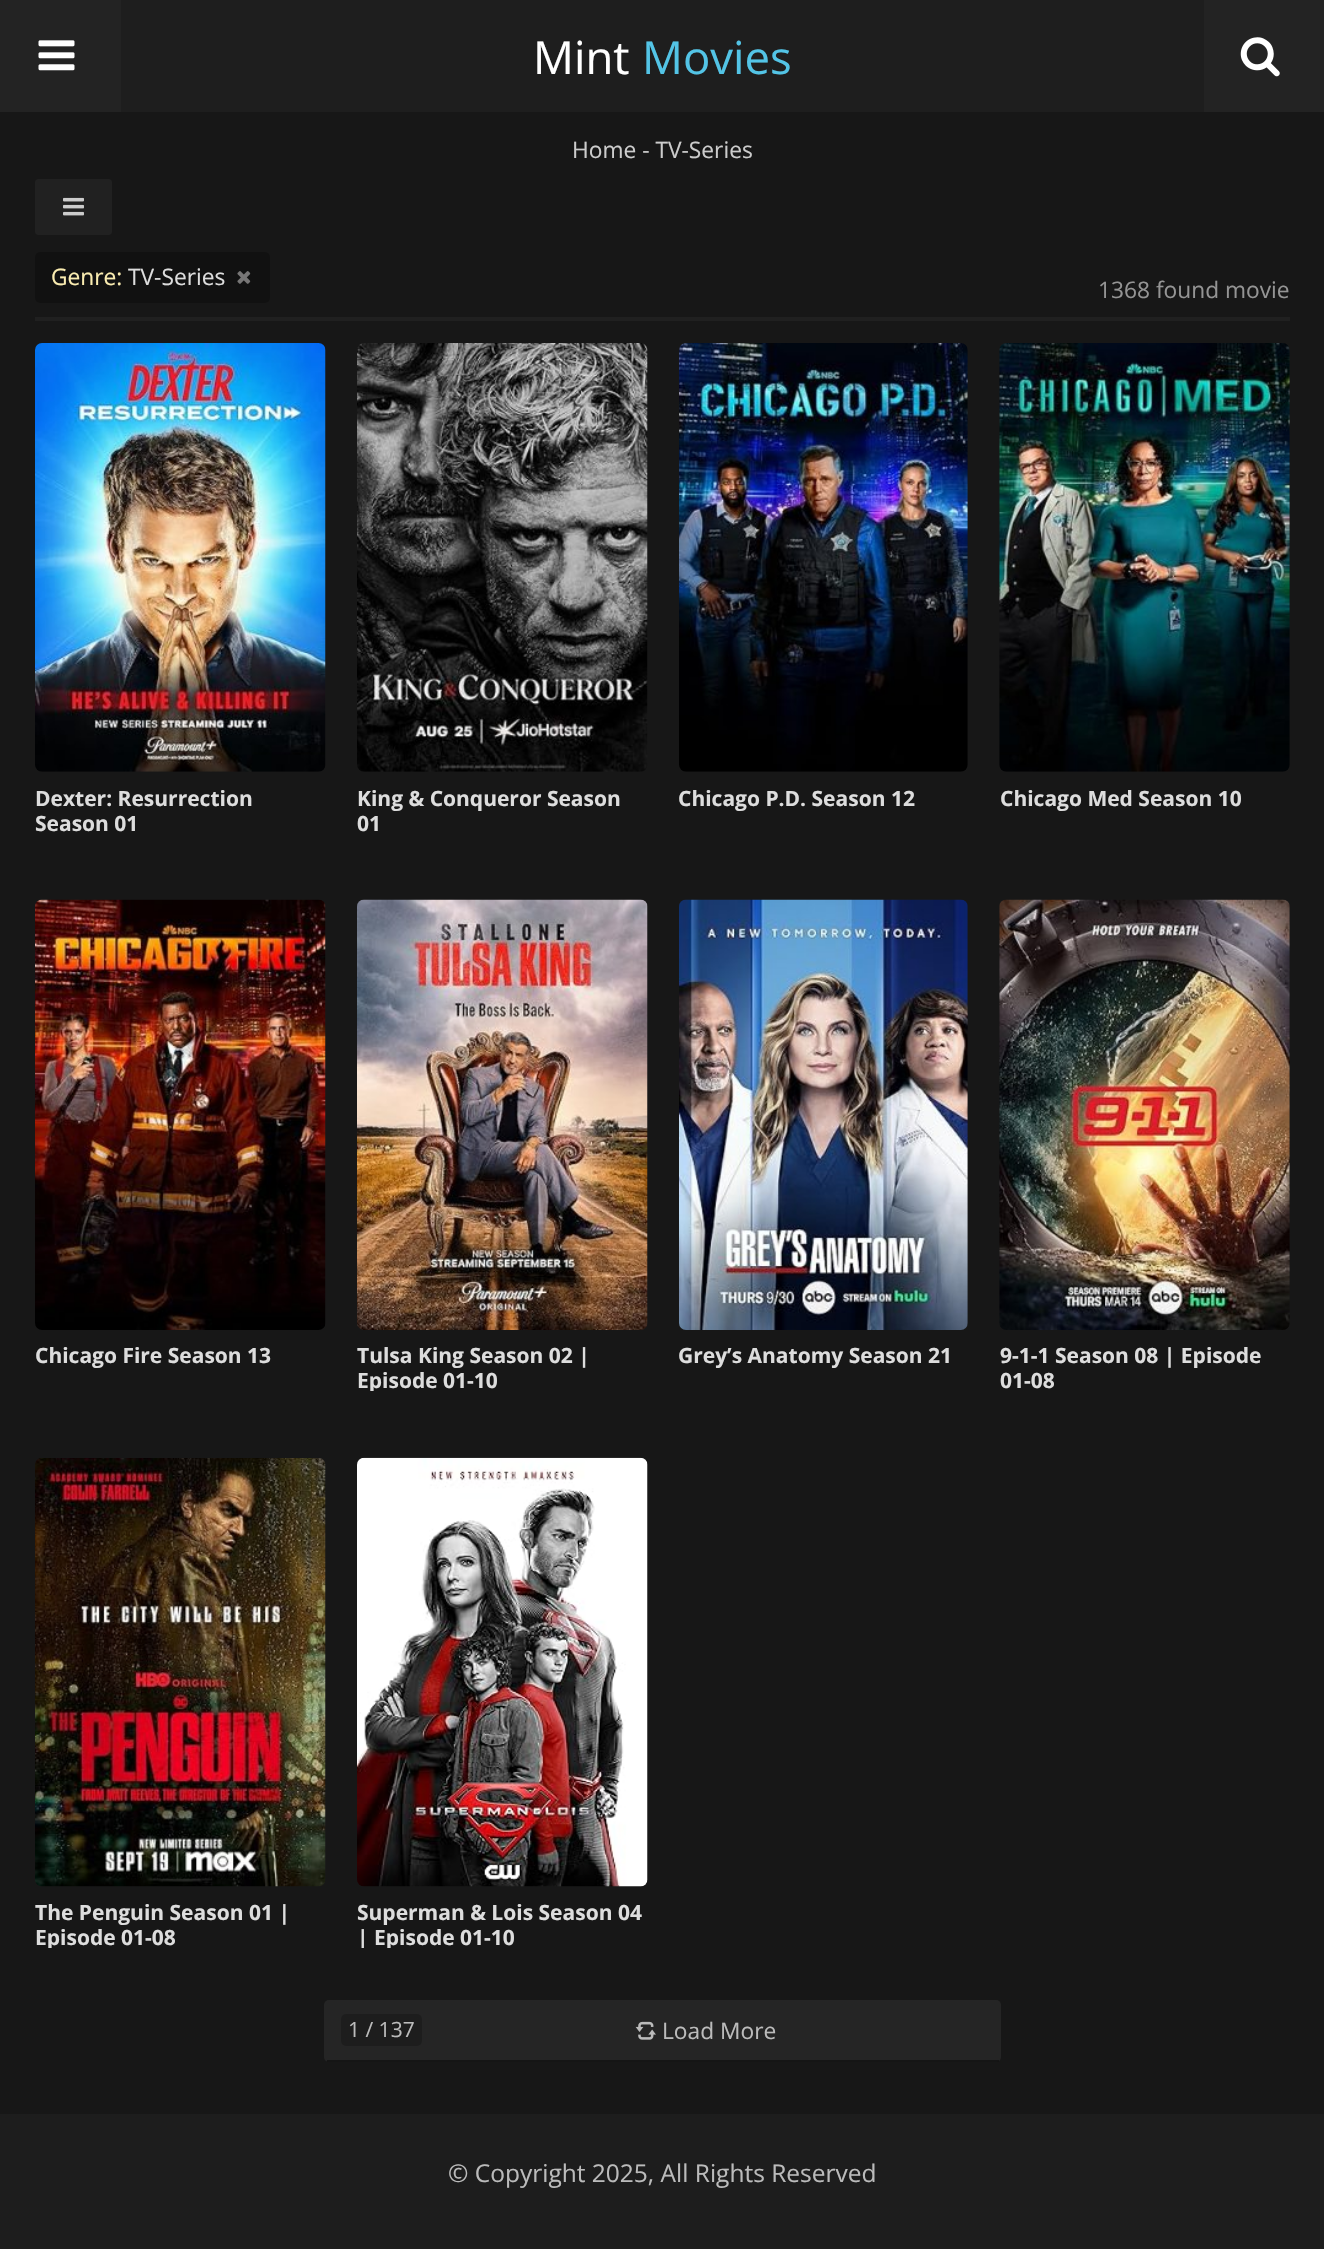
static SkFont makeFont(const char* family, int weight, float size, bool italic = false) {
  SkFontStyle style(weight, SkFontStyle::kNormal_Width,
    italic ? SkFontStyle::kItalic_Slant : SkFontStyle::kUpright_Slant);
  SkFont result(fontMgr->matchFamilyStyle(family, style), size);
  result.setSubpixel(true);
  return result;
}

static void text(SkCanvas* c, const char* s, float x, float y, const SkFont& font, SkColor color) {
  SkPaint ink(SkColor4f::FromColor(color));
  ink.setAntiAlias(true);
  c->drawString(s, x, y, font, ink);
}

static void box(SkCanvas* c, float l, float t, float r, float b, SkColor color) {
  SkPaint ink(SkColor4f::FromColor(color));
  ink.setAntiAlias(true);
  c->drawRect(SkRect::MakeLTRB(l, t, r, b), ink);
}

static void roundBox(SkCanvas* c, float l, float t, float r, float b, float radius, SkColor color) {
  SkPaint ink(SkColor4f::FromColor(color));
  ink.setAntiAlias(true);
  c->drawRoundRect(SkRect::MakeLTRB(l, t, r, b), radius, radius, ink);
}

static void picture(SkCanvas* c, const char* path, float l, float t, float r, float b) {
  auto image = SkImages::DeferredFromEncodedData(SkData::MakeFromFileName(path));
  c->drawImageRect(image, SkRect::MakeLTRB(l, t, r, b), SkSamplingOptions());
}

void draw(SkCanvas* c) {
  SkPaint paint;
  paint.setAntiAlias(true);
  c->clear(0xff171717);
  box(c, 121, 0, 1204, 112, 0xff1e1e1e);
  box(c, 0, 0, 121, 112, 0xff232323);
  picture(c, "img_01.png", 38, 40, 75, 71);
  SkFont face1 = makeFont("Open Sans", 400, 45.5f);
  text(c, "Mint", 533, 74, face1, 0xffffffff);
  text(c, "Movies", 642, 74, face1, 0xff53c4e6);
  box(c, 1204, 0, 1324, 112, 0xff232323);
  picture(c, "img_02.png", 1240, 37, 1280, 77);
  SkFont face2 = makeFont("Open Sans", 400, 22.75f);
  text(c, "Home - TV-Series", 572, 158, face2, 0xffcccccc);
  roundBox(c, 35, 179, 112, 235, 4, 0xff212121);
  picture(c, "img_03.png", 63, 197, 84, 216);
  box(c, 35, 317, 1290, 321, 0xff202020);
  roundBox(c, 35, 252, 270, 303, 5, 0xff111111);
  text(c, "Genre:", 51, 285, face2, 0xfffbedb1);
  text(c, "TV-Series", 128, 285, face2, 0xffdddddd);
  picture(c, "img_04.png", 237, 271, 251, 284);
  text(c, "1368 found movie", 1098, 298, face2, 0xff949494);
  picture(c, "img_05.png", 35, 343, 326, 772);
  SkFont face3 = makeFont("Open Sans", 700, 21);
  text(c, "Dexter: Resurrection", 35, 806, face3, 0xffdddddd);
  text(c, "Season 01", 35, 831, face3, 0xffdddddd);
  picture(c, "img_06.png", 357, 343, 648, 772);
  text(c, "King & Conqueror Season", 357, 806, face3, 0xffdddddd);
  text(c, "01", 357, 831, face3, 0xffdddddd);
  picture(c, "img_07.png", 679, 343, 968, 772);
  text(c, "Chicago P.D. Season 12", 678, 806, face3, 0xffdddddd);
  picture(c, "img_08.png", 999, 343, 1290, 772);
  text(c, "Chicago Med Season 10", 1000, 806, face3, 0xffdddddd);
  picture(c, "img_09.png", 35, 899, 326, 1330);
  text(c, "Chicago Fire Season 13", 35, 1363, face3, 0xffdddddd);
  picture(c, "img_10.png", 357, 899, 648, 1330);
  text(c, "Tulsa King Season 02 |", 357, 1363, face3, 0xffdddddd);
  c->save();
  c->clipRect(SkRect::MakeLTRB(357, 1344, 648, 1391));
  text(c, "Episode 01-10", 357, 1388, face3, 0xffdddddd);
  c->restore();
  picture(c, "img_11.png", 679, 899, 968, 1330);
  text(c, "Grey’s Anatomy Season 21", 678, 1363, face3, 0xffdddddd);
  picture(c, "img_12.png", 999, 899, 1290, 1330);
  text(c, "9-1-1 Season 08 | Episode", 1000, 1363, face3, 0xffdddddd);
  text(c, "01-08", 1000, 1388, face3, 0xffdddddd);
  picture(c, "img_13.png", 35, 1458, 326, 1887);
  text(c, "The Penguin Season 01 |", 35, 1920, face3, 0xffdddddd);
  c->save();
  c->clipRect(SkRect::MakeLTRB(35, 1901, 326, 1948));
  text(c, "Episode 01-08", 35, 1945, face3, 0xffdddddd);
  c->restore();
  picture(c, "img_14.png", 357, 1457, 648, 1887);
  text(c, "Superman & Lois Season 04", 357, 1920, face3, 0xffdddddd);
  c->save();
  c->clipRect(SkRect::MakeLTRB(357, 1901, 648, 1948));
  text(c, "| Episode 01-10", 357, 1945, face3, 0xffdddddd);
  c->restore();
  roundBox(c, 324, 2000, 1001, 2062, 5, 0xff252525);
  box(c, 327, 2060, 999, 2062, 0xc9111111);
  roundBox(c, 341, 2014, 422, 2046, 5, 0xff1d1d1d);
  SkFont face4 = makeFont("Open Sans", 400, 21);
  text(c, "1 / 137", 348, 2037, face4, 0xffbbbbbb);
  picture(c, "img_15.png", 635, 2021, 656, 2040);
  text(c, "Load More", 662, 2039, face2, 0xffbbbbbb);
  box(c, 0, 2114, 1324, 2249, 0xff1d1d1d);
  SkFont face5 = makeFont("Open Sans", 400, 24.5f);
  text(c, "© Copyright 2025, All Rights Reserved", 448, 2182, face5, 0xffbbbbbb);
}
